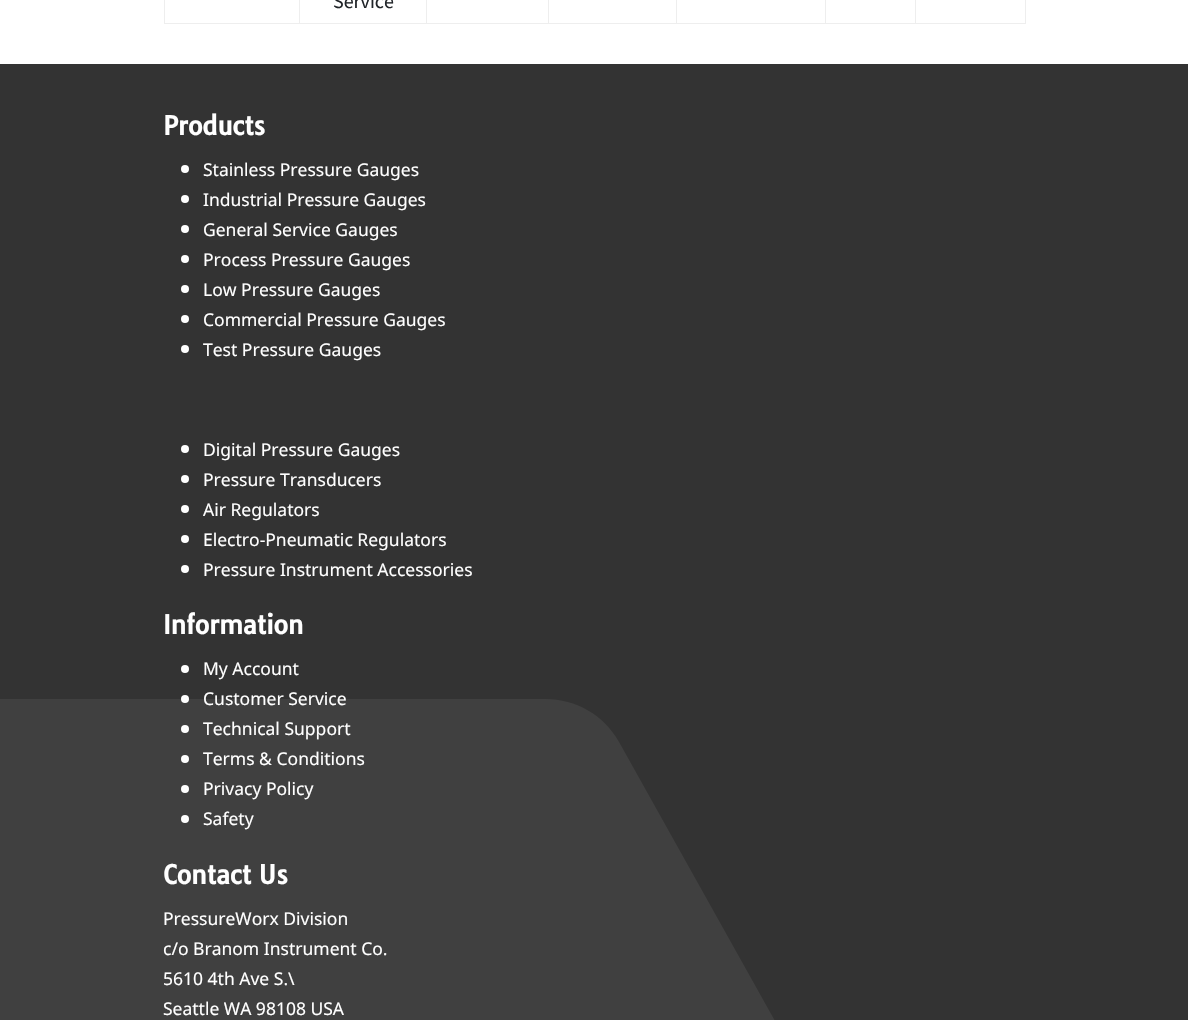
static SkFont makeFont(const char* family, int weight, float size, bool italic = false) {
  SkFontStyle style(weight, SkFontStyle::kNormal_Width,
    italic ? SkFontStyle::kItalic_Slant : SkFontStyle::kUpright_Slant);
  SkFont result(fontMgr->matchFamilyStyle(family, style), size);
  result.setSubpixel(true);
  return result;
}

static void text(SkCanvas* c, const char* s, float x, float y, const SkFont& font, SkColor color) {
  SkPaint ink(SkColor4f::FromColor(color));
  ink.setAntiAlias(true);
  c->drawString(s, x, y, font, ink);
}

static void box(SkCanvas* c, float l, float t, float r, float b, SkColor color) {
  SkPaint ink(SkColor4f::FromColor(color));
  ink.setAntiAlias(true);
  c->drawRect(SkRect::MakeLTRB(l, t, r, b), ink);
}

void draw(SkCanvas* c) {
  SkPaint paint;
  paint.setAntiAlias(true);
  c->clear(0xffffffff);
  box(c, 1025, 0, 1026, 24, 0xffeeeeee);
  box(c, 915, 23, 1026, 24, 0xffeeeeee);
  box(c, 915, 0, 916, 24, 0xffeeeeee);
  box(c, 825, 23, 916, 24, 0xffeeeeee);
  box(c, 825, 0, 826, 24, 0xffeeeeee);
  box(c, 676, 23, 826, 24, 0xffeeeeee);
  box(c, 676, 0, 677, 24, 0xffeeeeee);
  box(c, 548, 23, 678, 24, 0xffeeeeee);
  box(c, 548, 0, 549, 24, 0xffeeeeee);
  box(c, 426, 23, 549, 24, 0xffeeeeee);
  box(c, 426, 0, 427, 24, 0xffeeeeee);
  box(c, 299, 23, 428, 24, 0xffeeeeee);
  box(c, 299, 0, 300, 24, 0xffeeeeee);
  box(c, 164, 23, 300, 24, 0xffeeeeee);
  box(c, 164, 0, 165, 24, 0xffeeeeee);
  SkFont face1 = makeFont("Source Sans Pro", 400, 20);
  text(c, "Service", 333, 8, face1, 0xff212529);
  box(c, 0, 64, 1188, 1020, 0xff333333);
  SkFont face2 = makeFont("Tauri", 700, 25);
  text(c, "Products", 163, 135, face2, 0xffffffff);
  paint.setColor(0xffffffff);
  c->drawCircle(185, 169, 4, paint);
  SkFont face3 = makeFont("Noto Sans", 400, 17.5f);
  text(c, "Stainless Pressure Gauges", 203, 176, face3, 0xffffffff);
  c->drawCircle(185, 199, 4, paint);
  text(c, "Industrial Pressure Gauges", 203, 206, face3, 0xffffffff);
  c->drawCircle(185, 229, 4, paint);
  text(c, "General Service Gauges", 203, 236, face3, 0xffffffff);
  c->drawCircle(185, 259, 4, paint);
  text(c, "Process Pressure Gauges", 203, 266, face3, 0xffffffff);
  c->drawCircle(185, 289, 4, paint);
  text(c, "Low Pressure Gauges", 203, 296, face3, 0xffffffff);
  c->drawCircle(185, 319, 4, paint);
  text(c, "Commercial Pressure Gauges", 203, 326, face3, 0xffffffff);
  c->drawCircle(185, 349, 4, paint);
  text(c, "Test Pressure Gauges", 203, 356, face3, 0xffffffff);
  c->drawCircle(185, 449, 4, paint);
  text(c, "Digital Pressure Gauges", 203, 456, face3, 0xffffffff);
  c->drawCircle(185, 479, 4, paint);
  text(c, "Pressure Transducers", 203, 486, face3, 0xffffffff);
  c->drawCircle(185, 509, 4, paint);
  text(c, "Air Regulators", 203, 516, face3, 0xffffffff);
  c->drawCircle(185, 539, 4, paint);
  text(c, "Electro-Pneumatic Regulators", 203, 546, face3, 0xffffffff);
  c->drawCircle(185, 569, 4, paint);
  text(c, "Pressure Instrument Accessories", 203, 576, face3, 0xffffffff);
  text(c, "Information", 163, 634, face2, 0xffffffff);
  c->drawCircle(185, 669, 4, paint);
  text(c, "My Account", 203, 675, face3, 0xffffffff);
  paint.setColor(0xff404040);
  c->drawPath(SkPathBuilder().moveTo(545, 699).lineTo(0, 699).lineTo(0, 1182).lineTo(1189, 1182).lineTo(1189, 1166).lineTo(907, 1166).cubicTo(876, 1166, 847, 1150, 832, 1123).lineTo(619, 742).cubicTo(604, 715, 576, 699, 545, 699).close().detach(), paint);
  paint.setColor(0xffffffff);
  c->drawCircle(185, 699, 4, paint);
  text(c, "Customer Service", 203, 705, face3, 0xffffffff);
  c->drawCircle(185, 729, 4, paint);
  text(c, "Technical Support", 203, 735, face3, 0xffffffff);
  c->drawCircle(185, 759, 4, paint);
  text(c, "Terms & Conditions", 203, 765, face3, 0xffffffff);
  c->drawCircle(185, 789, 4, paint);
  text(c, "Privacy Policy", 203, 795, face3, 0xffffffff);
  c->drawCircle(185, 819, 4, paint);
  text(c, "Safety", 203, 825, face3, 0xffffffff);
  text(c, "Contact Us", 163, 884, face2, 0xffffffff);
  text(c, "PressureWorx Division", 163, 925, face3, 0xffffffff);
  text(c, "c/o Branom Instrument Co.", 163, 955, face3, 0xffffffff);
  text(c, "5610 4th Ave S.\\", 163, 985, face3, 0xffffffff);
  text(c, "Seattle WA 98108 USA", 163, 1015, face3, 0xffffffff);
}
